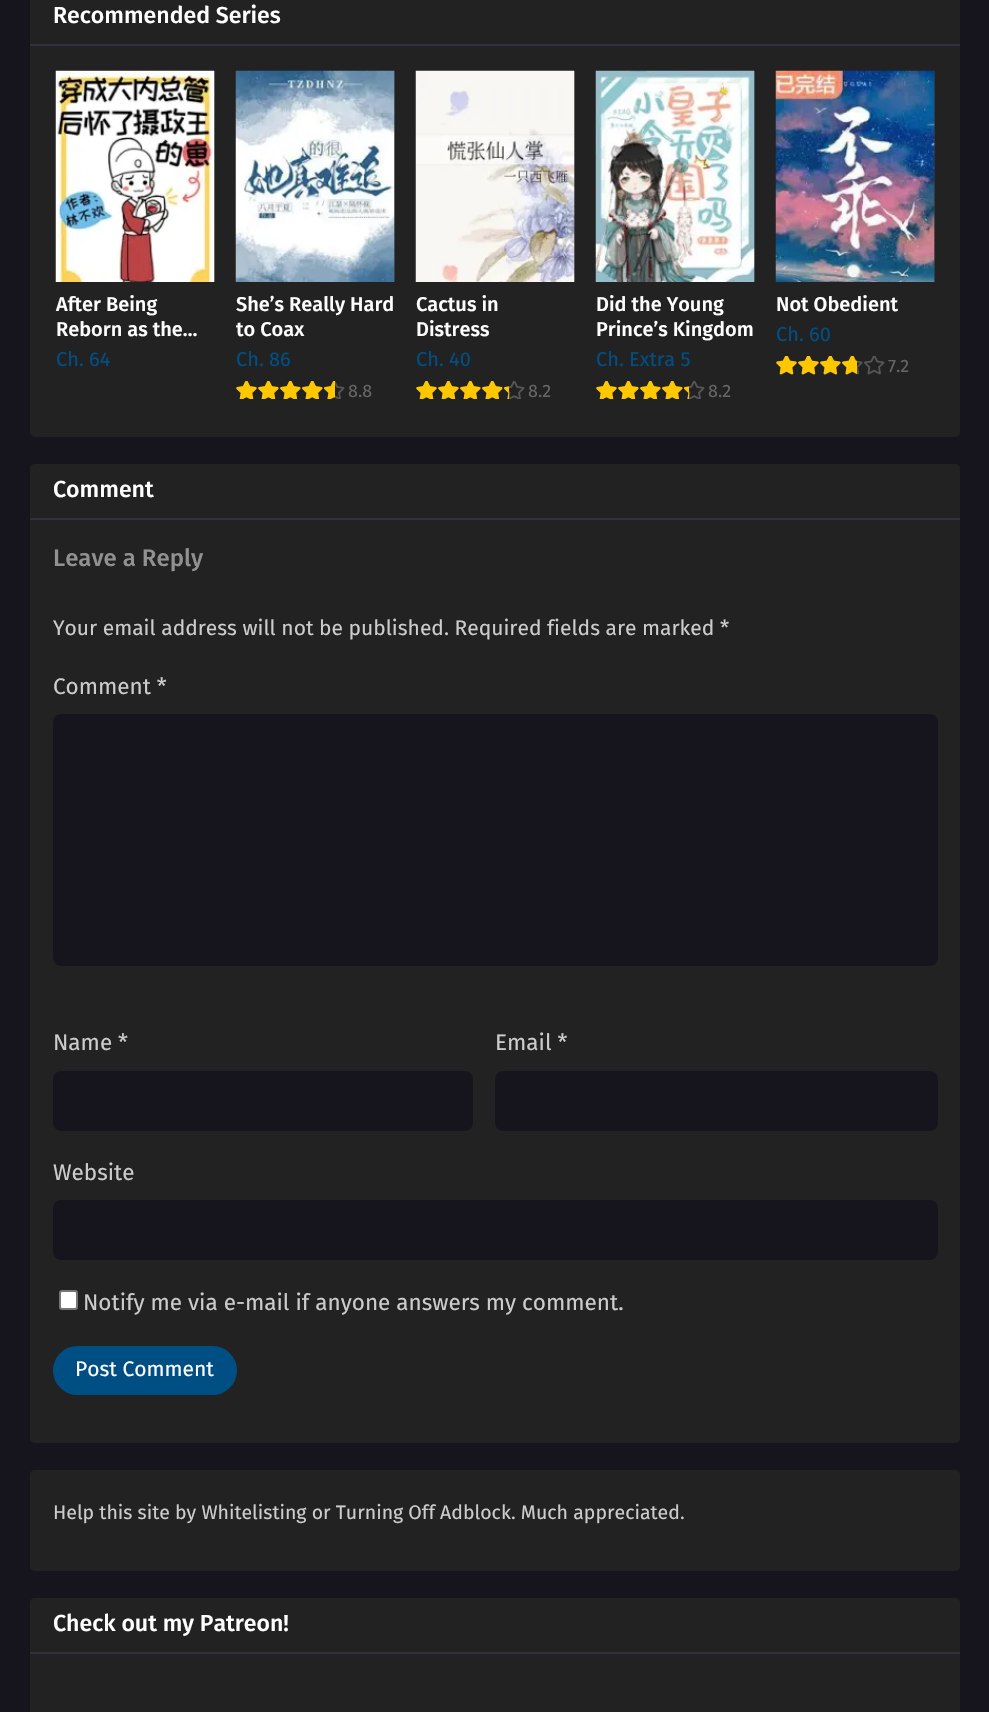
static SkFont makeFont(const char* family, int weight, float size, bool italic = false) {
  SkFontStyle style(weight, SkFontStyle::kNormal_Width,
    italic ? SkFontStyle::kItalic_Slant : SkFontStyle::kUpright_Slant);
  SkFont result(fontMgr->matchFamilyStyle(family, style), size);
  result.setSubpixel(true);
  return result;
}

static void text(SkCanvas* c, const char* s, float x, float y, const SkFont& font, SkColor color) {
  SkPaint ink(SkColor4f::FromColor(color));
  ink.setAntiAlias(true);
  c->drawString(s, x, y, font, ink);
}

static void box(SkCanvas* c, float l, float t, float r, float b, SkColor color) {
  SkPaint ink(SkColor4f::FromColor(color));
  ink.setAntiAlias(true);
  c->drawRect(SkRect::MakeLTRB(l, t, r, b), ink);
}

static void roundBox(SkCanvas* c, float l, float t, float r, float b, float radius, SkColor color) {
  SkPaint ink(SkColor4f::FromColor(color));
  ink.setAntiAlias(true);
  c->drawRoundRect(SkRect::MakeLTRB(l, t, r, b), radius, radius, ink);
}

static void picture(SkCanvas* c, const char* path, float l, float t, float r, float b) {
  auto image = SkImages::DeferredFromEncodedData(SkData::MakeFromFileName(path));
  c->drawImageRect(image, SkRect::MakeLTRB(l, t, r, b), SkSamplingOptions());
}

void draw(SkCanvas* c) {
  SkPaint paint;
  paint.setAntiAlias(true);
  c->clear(0xff16151d);
  roundBox(c, 30, -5, 960, 437, 5, 0xff222222);
  box(c, 30, 44, 960, 46, 0xff312f40);
  SkFont face1 = makeFont("Fira Sans", 500, 23.1f);
  text(c, "Recommended Series", 53, 23, face1, 0xffffffff);
  box(c, 214, 71, 215, 282, 0xff333333);
  picture(c, "img_01.png", 55, 70, 215, 282);
  SkFont face2 = makeFont("Fira Sans", 500, 20);
  text(c, "After Being", 56, 311, face2, 0xffffffff);
  text(c, "Reborn as the…", 56, 336, face2, 0xffffffff);
  SkFont face3 = makeFont("Fira Sans", 400, 20);
  text(c, "Ch. 64", 56, 366, face3, 0xff004f84);
  box(c, 394, 71, 395, 282, 0xff333333);
  picture(c, "img_02.png", 235, 70, 395, 282);
  text(c, "She’s Really Hard", 236, 311, face2, 0xffffffff);
  c->save();
  c->clipRect(SkRect::MakeLTRB(236, 294, 395, 344));
  text(c, "to Coax", 236, 336, face2, 0xffffffff);
  c->restore();
  text(c, "Ch. 86", 236, 366, face3, 0xff004f84);
  picture(c, "img_03.png", 236, 381, 345, 399);
  picture(c, "img_04.png", 236, 381, 335, 399);
  SkFont face4 = makeFont("Fira Sans", 400, 18);
  text(c, "8.8", 348, 397, face4, 0xff666666);
  box(c, 574, 71, 575, 282, 0xff333333);
  picture(c, "img_05.png", 415, 70, 575, 282);
  text(c, "Cactus in", 416, 311, face2, 0xffffffff);
  text(c, "Distress", 416, 336, face2, 0xffffffff);
  text(c, "Ch. 40", 416, 366, face3, 0xff004f84);
  picture(c, "img_03.png", 416, 381, 525, 399);
  picture(c, "img_06.png", 416, 381, 509, 399);
  text(c, "8.2", 528, 397, face4, 0xff666666);
  box(c, 754, 71, 755, 282, 0xff333333);
  picture(c, "img_07.png", 595, 70, 755, 282);
  text(c, "Did the Young", 596, 311, face2, 0xffffffff);
  text(c, "Prince’s Kingdom", 596, 336, face2, 0xffffffff);
  text(c, "Ch. Extra 5", 596, 366, face3, 0xff004f84);
  picture(c, "img_03.png", 596, 381, 705, 399);
  picture(c, "img_06.png", 596, 381, 689, 399);
  text(c, "8.2", 708, 397, face4, 0xff666666);
  box(c, 934, 71, 935, 282, 0xff333333);
  picture(c, "img_08.png", 775, 70, 935, 282);
  text(c, "Not Obedient", 776, 311, face2, 0xffffffff);
  text(c, "Ch. 60", 776, 341, face3, 0xff004f84);
  picture(c, "img_09.png", 776, 356, 885, 375);
  picture(c, "img_10.png", 776, 356, 857, 375);
  text(c, "7.2", 888, 372, face4, 0xff666666);
  roundBox(c, 30, 464, 960, 1443, 5, 0xff222222);
  box(c, 30, 518, 960, 520, 0xff312f40);
  text(c, "Comment", 53, 497, face1, 0xffffffff);
  SkFont face5 = makeFont("Fira Sans", 500, 24);
  text(c, "Leave a Reply", 53, 566, face5, 0xff919191);
  SkFont face6 = makeFont("Fira Sans", 400, 21);
  text(c, "Your email address will not be published. Required fields are marked *", 53, 635, face6, 0xffcccccc);
  SkFont face7 = makeFont("Fira Sans", 400, 22.5f);
  text(c, "Comment *", 53, 694, face7, 0xffcccccc);
  paint.setColor(0xff16151d);
  c->drawRoundRect(SkRect::MakeLTRB(54, 715, 937, 965), 7, 7, paint);
  paint.setStyle(SkPaint::kStroke_Style);
  paint.setStrokeWidth(2);
  c->drawRoundRect(SkRect::MakeLTRB(54, 715, 937, 965), 7, 7, paint);
  text(c, "Name *", 53, 1050, face7, 0xffcccccc);
  paint.setStyle(SkPaint::kFill_Style);
  c->drawRoundRect(SkRect::MakeLTRB(54, 1072, 472, 1130), 7, 7, paint);
  paint.setStyle(SkPaint::kStroke_Style);
  c->drawRoundRect(SkRect::MakeLTRB(54, 1072, 472, 1130), 7, 7, paint);
  text(c, "Email *", 495, 1050, face7, 0xffcccccc);
  paint.setStyle(SkPaint::kFill_Style);
  c->drawRoundRect(SkRect::MakeLTRB(496, 1072, 937, 1130), 7, 7, paint);
  paint.setStyle(SkPaint::kStroke_Style);
  c->drawRoundRect(SkRect::MakeLTRB(496, 1072, 937, 1130), 7, 7, paint);
  text(c, "Website", 53, 1180, face7, 0xffcccccc);
  paint.setStyle(SkPaint::kFill_Style);
  c->drawRoundRect(SkRect::MakeLTRB(54, 1201, 937, 1259), 7, 7, paint);
  paint.setStyle(SkPaint::kStroke_Style);
  c->drawRoundRect(SkRect::MakeLTRB(54, 1201, 937, 1259), 7, 7, paint);
  paint.setStyle(SkPaint::kFill_Style);
  paint.setColor(0xffffffff);
  c->drawRoundRect(SkRect::MakeLTRB(60, 1291, 77, 1309), 2, 2, paint);
  paint.setStyle(SkPaint::kStroke_Style);
  paint.setColor(0xff767676);
  c->drawRoundRect(SkRect::MakeLTRB(60, 1291, 77, 1309), 2, 2, paint);
  text(c, "Notify me via e-mail if anyone answers my comment.", 83, 1310, face7, 0xffcccccc);
  roundBox(c, 53, 1346, 237, 1395, 24.5f, 0xff004f84);
  text(c, "Post Comment", 75, 1376, face6, 0xffffffff);
  roundBox(c, 30, 1470, 960, 1571, 5, 0xff222222);
  SkFont face8 = makeFont("Fira Sans", 400, 19.5f);
  text(c, "Help this site by Whitelisting or Turning Off Adblock. Much appreciated.", 53, 1519, face8, 0xffcccccc);
  roundBox(c, 30, 1598, 960, 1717, 5, 0xff222222);
  box(c, 30, 1652, 960, 1654, 0xff312f40);
  text(c, "Check out my Patreon!", 53, 1631, face1, 0xffffffff);
}
